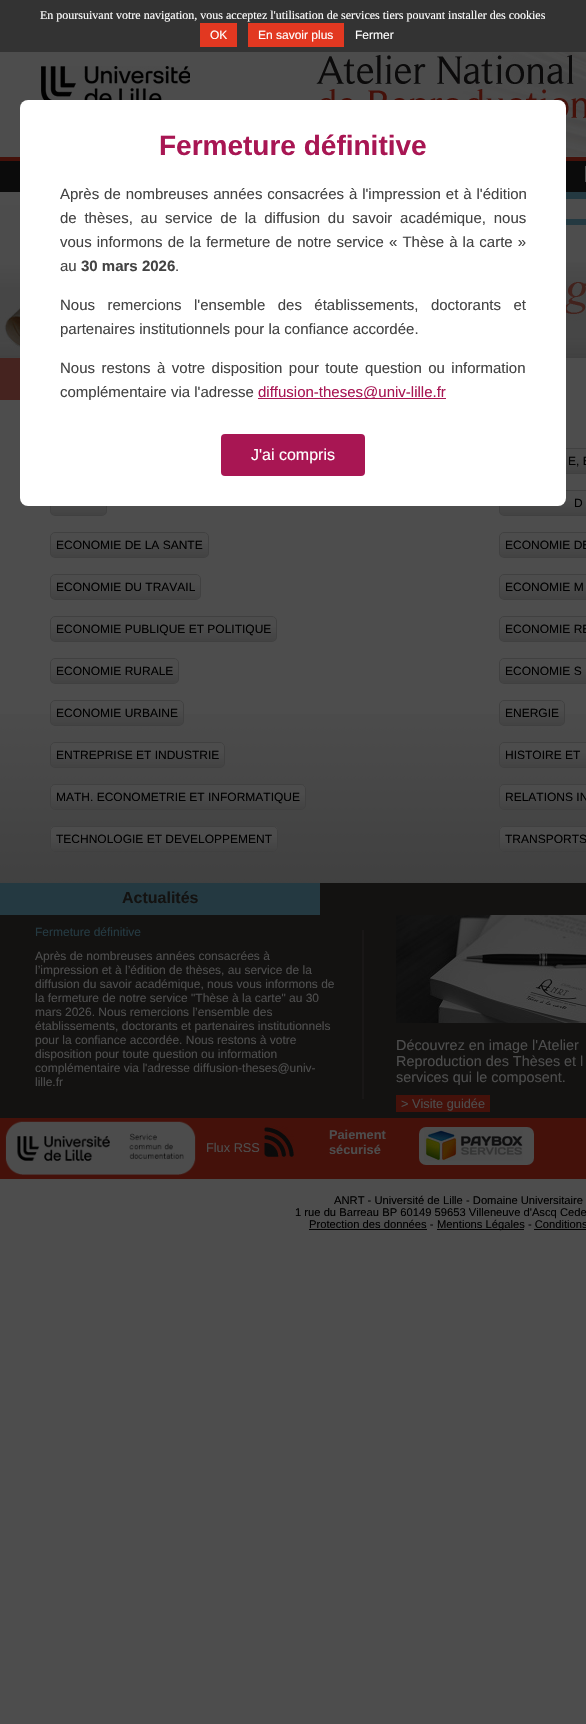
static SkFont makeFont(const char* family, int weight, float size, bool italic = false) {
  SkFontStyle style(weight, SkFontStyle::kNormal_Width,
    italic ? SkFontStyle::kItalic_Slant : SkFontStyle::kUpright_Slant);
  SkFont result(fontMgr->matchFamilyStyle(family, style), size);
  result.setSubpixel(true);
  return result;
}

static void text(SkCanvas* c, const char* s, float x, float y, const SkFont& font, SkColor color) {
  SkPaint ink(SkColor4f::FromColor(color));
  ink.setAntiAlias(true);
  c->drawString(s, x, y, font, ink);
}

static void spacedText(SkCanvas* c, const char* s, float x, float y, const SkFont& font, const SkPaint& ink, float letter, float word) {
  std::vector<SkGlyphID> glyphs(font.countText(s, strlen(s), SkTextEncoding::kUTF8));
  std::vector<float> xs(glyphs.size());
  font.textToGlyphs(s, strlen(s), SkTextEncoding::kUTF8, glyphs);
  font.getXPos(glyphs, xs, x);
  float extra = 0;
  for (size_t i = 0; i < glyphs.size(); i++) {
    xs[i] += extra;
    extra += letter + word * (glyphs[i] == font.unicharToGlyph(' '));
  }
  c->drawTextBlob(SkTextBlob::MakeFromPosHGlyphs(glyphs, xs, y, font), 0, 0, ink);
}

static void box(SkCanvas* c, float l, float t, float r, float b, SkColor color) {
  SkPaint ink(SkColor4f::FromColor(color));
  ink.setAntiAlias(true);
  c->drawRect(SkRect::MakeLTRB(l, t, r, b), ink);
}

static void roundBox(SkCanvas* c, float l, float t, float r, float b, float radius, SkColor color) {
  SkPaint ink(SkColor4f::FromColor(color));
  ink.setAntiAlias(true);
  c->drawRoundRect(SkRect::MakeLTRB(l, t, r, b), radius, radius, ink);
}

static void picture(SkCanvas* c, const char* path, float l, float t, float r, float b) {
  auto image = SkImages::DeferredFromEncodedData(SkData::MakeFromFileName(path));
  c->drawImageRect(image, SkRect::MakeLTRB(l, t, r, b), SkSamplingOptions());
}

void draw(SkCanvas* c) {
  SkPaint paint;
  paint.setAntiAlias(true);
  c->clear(0xff4d4d4d);
  box(c, 0, 0, 586, 52, 0xff333333);
  SkFont face1 = makeFont("Liberation Serif", 400, 12);
  text(c, "En poursuivant votre navigation, vous acceptez l'utilisation de services tiers pouvant installer des cookies", 40, 19, face1, 0xffffffff);
  box(c, 200, 23, 237, 47, 0xffe23821);
  SkFont face2 = makeFont("Liberation Sans", 400, 12);
  text(c, "OK", 210, 39, face2, 0xffffffff);
  box(c, 248, 23, 344, 47, 0xffe23821);
  text(c, "En savoir plus", 258, 39, face2, 0xffffffff);
  text(c, "Fermer", 355, 39, face2, 0xffffffff);
  picture(c, "img_02.png", 190, 52, 586, 156);
  box(c, 0, 161, 586, 192, 0xff0b0b0b);
  box(c, 0, 157, 586, 161, 0xff44110a);
  picture(c, "img_06.png", 566, 449, 586, 473);
  paint.setStyle(SkPaint::kStroke_Style);
  paint.setStrokeWidth(1);
  paint.setColor(0xff404040);
  c->drawRect(SkRect::MakeLTRB(499.5f, 448.5f, 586.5f, 473.5f), paint);
  picture(c, "img_07.png", 50, 506, 107, 515);
  c->drawRoundRect(SkRect::MakeLTRB(50.5f, 490.5f, 106.5f, 515.5f), 4.5f, 4.5f, paint);
  picture(c, "img_08.png", 499, 491, 586, 515);
  c->drawRoundRect(SkRect::MakeLTRB(499.5f, 490.5f, 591.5f, 515.5f), 4.5f, 4.5f, paint);
  roundBox(c, 20, 100, 566, 506, 8, 0xffffffff);
  SkFont face3 = makeFont("Liberation Sans", 700, 28);
  text(c, "Fermeture définitive", 159, 155, face3, 0xffa81653);
  SkFont face4 = makeFont("Liberation Sans", 400, 15);
  paint.setStyle(SkPaint::kFill_Style);
  paint.setColor(0xff434343);
  spacedText(c, "Après de nombreuses années consacrées à l'impression et à l'édition", 60, 199, face4, paint, 0, 0.75f);
  spacedText(c, "de thèses, au service de la diffusion du savoir académique, nous", 60, 223, face4, paint, 0, 3.6f);
  spacedText(c, "vous informons de la fermeture de notre service « Thèse à la carte »", 60, 247, face4, paint, 0, 0.9f);
  text(c, "au", 60, 271, face4, 0xff434343);
  SkFont face5 = makeFont("Liberation Sans", 700, 15);
  text(c, "30 mars 2026", 81, 271, face5, 0xff434343);
  text(c, ".", 175, 271, face4, 0xff434343);
  spacedText(c, "Nous remercions l'ensemble des établissements, doctorants et", 60, 310, face4, paint, 0, 8.25f);
  text(c, "partenaires institutionnels pour la confiance accordée.", 60, 334, face4, 0xff434343);
  spacedText(c, "Nous restons à votre disposition pour toute question ou information", 60, 373, face4, paint, 0, 2.25f);
  text(c, "complémentaire via l'adresse", 60, 397, face4, 0xff434343);
  box(c, 258, 398, 446, 399, 0xffa81653);
  text(c, "diffusion-theses@univ-lille.fr", 258, 397, face4, 0xffa81653);
  roundBox(c, 221, 434, 365, 476, 4, 0xffa81653);
  SkFont face6 = makeFont("Liberation Sans", 400, 16);
  text(c, "J'ai compris", 251, 460, face6, 0xffffffff);
  picture(c, "img_01.png", 41, 66, 190, 100);
  box(c, 585, 166, 586, 182, 0xff4d4d4d);
  picture(c, "img_03.png", 0, 205, 20, 358);
  box(c, 566, 192, 586, 225, 0xff243941);
  box(c, 566, 199, 586, 219, 0xff4d4d4d);
  picture(c, "img_04.png", 566, 262, 586, 358);
  box(c, 0, 358, 20, 400, 0xff45231f);
  picture(c, "img_05.png", 0, 714, 586, 883);
  text(c, "E, E", 568, 465, face2, 0xff000000);
  text(c, "D", 574, 507, face2, 0xff000000);
  picture(c, "img_09.png", 50, 533, 209, 557);
  paint.setStyle(SkPaint::kStroke_Style);
  paint.setColor(0xff404040);
  c->drawRoundRect(SkRect::MakeLTRB(50.5f, 532.5f, 208.5f, 557.5f), 4.5f, 4.5f, paint);
  text(c, "ECONOMIE DE LA SANTE", 56, 549, face2, 0xff000000);
  picture(c, "img_08.png", 499, 533, 586, 557);
  c->drawRoundRect(SkRect::MakeLTRB(499.5f, 532.5f, 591.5f, 557.5f), 4.5f, 4.5f, paint);
  text(c, "ECONOMIE DE", 505, 549, face2, 0xff000000);
  picture(c, "img_10.png", 50, 575, 201, 599);
  c->drawRoundRect(SkRect::MakeLTRB(50.5f, 574.5f, 200.5f, 599.5f), 4.5f, 4.5f, paint);
  text(c, "ECONOMIE DU TRAVAIL", 56, 591, face2, 0xff000000);
  picture(c, "img_08.png", 499, 575, 586, 599);
  c->drawRoundRect(SkRect::MakeLTRB(499.5f, 574.5f, 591.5f, 599.5f), 4.5f, 4.5f, paint);
  text(c, "ECONOMIE M", 505, 591, face2, 0xff000000);
  picture(c, "img_11.png", 50, 617, 277, 641);
  c->drawRoundRect(SkRect::MakeLTRB(50.5f, 616.5f, 276.5f, 641.5f), 4.5f, 4.5f, paint);
  text(c, "ECONOMIE PUBLIQUE ET POLITIQUE", 56, 633, face2, 0xff000000);
  picture(c, "img_08.png", 499, 617, 586, 641);
  c->drawRoundRect(SkRect::MakeLTRB(499.5f, 616.5f, 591.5f, 641.5f), 4.5f, 4.5f, paint);
  text(c, "ECONOMIE RE", 505, 633, face2, 0xff000000);
  picture(c, "img_12.png", 50, 659, 179, 683);
  c->drawRoundRect(SkRect::MakeLTRB(50.5f, 658.5f, 178.5f, 683.5f), 4.5f, 4.5f, paint);
  text(c, "ECONOMIE RURALE", 56, 675, face2, 0xff000000);
  picture(c, "img_08.png", 499, 659, 586, 683);
  c->drawRoundRect(SkRect::MakeLTRB(499.5f, 658.5f, 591.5f, 683.5f), 4.5f, 4.5f, paint);
  text(c, "ECONOMIE S", 505, 675, face2, 0xff000000);
  picture(c, "img_13.png", 50, 701, 184, 725);
  c->drawRoundRect(SkRect::MakeLTRB(50.5f, 700.5f, 183.5f, 725.5f), 4.5f, 4.5f, paint);
  text(c, "ECONOMIE URBAINE", 56, 717, face2, 0xff000000);
  picture(c, "img_14.png", 499, 701, 565, 725);
  c->drawRoundRect(SkRect::MakeLTRB(499.5f, 700.5f, 564.5f, 725.5f), 4.5f, 4.5f, paint);
  text(c, "ENERGIE", 505, 717, face2, 0xff000000);
  picture(c, "img_15.png", 50, 743, 225, 767);
  c->drawRoundRect(SkRect::MakeLTRB(50.5f, 742.5f, 224.5f, 767.5f), 4.5f, 4.5f, paint);
  text(c, "ENTREPRISE ET INDUSTRIE", 56, 759, face2, 0xff000000);
  picture(c, "img_16.png", 499, 743, 586, 767);
  c->drawRoundRect(SkRect::MakeLTRB(499.5f, 742.5f, 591.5f, 767.5f), 4.5f, 4.5f, paint);
  text(c, "HISTOIRE ET", 505, 759, face2, 0xff000000);
  roundBox(c, 50, 784, 306, 810, 5, 0xff434343);
  picture(c, "img_17.png", 50, 785, 306, 807);
  c->drawRoundRect(SkRect::MakeLTRB(50.5f, 784.5f, 305.5f, 809.5f), 4.5f, 4.5f, paint);
  text(c, "MATH. ECONOMETRIE ET INFORMATIQUE", 56, 801, face2, 0xff000000);
  roundBox(c, 499, 784, 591, 810, 5, 0xff434343);
  picture(c, "img_18.png", 499, 785, 586, 807);
  c->drawRoundRect(SkRect::MakeLTRB(499.5f, 784.5f, 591.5f, 809.5f), 4.5f, 4.5f, paint);
  text(c, "RELATIONS IN", 505, 801, face2, 0xff000000);
  picture(c, "img_19.png", 50, 827, 278, 849);
  c->drawRoundRect(SkRect::MakeLTRB(50.5f, 826.5f, 277.5f, 851.5f), 4.5f, 4.5f, paint);
  text(c, "TECHNOLOGIE ET DEVELOPPEMENT", 56, 843, face2, 0xff000000);
  picture(c, "img_20.png", 499, 827, 586, 849);
  c->drawRoundRect(SkRect::MakeLTRB(499.5f, 826.5f, 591.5f, 851.5f), 4.5f, 4.5f, paint);
  text(c, "TRANSPORTS", 505, 843, face2, 0xff000000);
  box(c, 0, 883, 586, 1118, 0xff131211);
  box(c, 362, 930, 364, 1099, 0xff191717);
  box(c, 0, 883, 320, 915, 0xff243941);
  SkFont face7 = makeFont("Liberation Sans", 700, 16);
  text(c, "Actualités", 122, 903, face7, 0xff131211);
  text(c, "Fermeture définitive", 35, 936, face2, 0xff243941);
  text(c, "Après de nombreuses années consacrées à", 35, 960, face2, 0xff4d4d4d);
  text(c, "l’impression et à l’édition de thèses, au service de la", 35, 974, face2, 0xff4d4d4d);
  text(c, "diffusion du savoir académique, nous vous informons de", 35, 988, face2, 0xff4d4d4d);
  text(c, "la fermeture de notre service \"Thèse à la carte\" au 30", 35, 1002, face2, 0xff4d4d4d);
  text(c, "mars 2026. Nous remercions l’ensemble des", 35, 1016, face2, 0xff4d4d4d);
  text(c, "établissements, doctorants et partenaires institutionnels", 35, 1030, face2, 0xff4d4d4d);
  text(c, "pour la confiance accordée. Nous restons à votre", 35, 1044, face2, 0xff4d4d4d);
  text(c, "disposition pour toute question ou information", 35, 1058, face2, 0xff4d4d4d);
  text(c, "complémentaire via l'adresse diffusion-theses@univ-", 35, 1072, face2, 0xff4d4d4d);
  text(c, "lille.fr", 35, 1086, face2, 0xff4d4d4d);
  picture(c, "img_21.png", 396, 915, 586, 1023);
  SkFont face8 = makeFont("Liberation Sans", 400, 14.4f);
  text(c, "Découvrez en image l'Atelier", 396, 1050, face8, 0xff4d4d4d);
  text(c, "Reproduction des Thèses et l", 396, 1066, face8, 0xff4d4d4d);
  text(c, "services qui le composent.", 396, 1082, face8, 0xff4d4d4d);
  box(c, 396, 1095, 490, 1112, 0xff44110a);
  SkFont face9 = makeFont("Liberation Sans", 400, 12.75f);
  text(c, "> Visite guidée", 401, 1108, face9, 0xff4d4d4d);
  box(c, 0, 1118, 586, 1179, 0xff44110a);
  picture(c, "img_22.png", 5, 1121, 196, 1175);
  text(c, "Flux RSS", 206, 1152, face9, 0xff4d4d4d);
  picture(c, "img_23.png", 264, 1126, 294, 1158);
  SkFont face10 = makeFont("Liberation Sans", 700, 12.75f);
  text(c, "Paiement", 329, 1139, face10, 0xff4d4d4d);
  text(c, "sécurisé", 329, 1154, face10, 0xff4d4d4d);
  roundBox(c, 419, 1127, 534, 1165, 7, 0xff4d4d4d);
  picture(c, "img_24.png", 424, 1130, 523, 1161);
  SkFont face11 = makeFont("Liberation Sans", 400, 11.2f);
  text(c, "ANRT - Université de Lille - Domaine Universitaire", 334, 1204, face11, 0xff000000);
  text(c, "1 rue du Barreau BP 60149 59653 Villeneuve d'Ascq Cede", 295, 1216, face11, 0xff000000);
  text(c, "Protection des données -", 309, 1228, face11, 0xff000000);
  box(c, 309, 1229, 427, 1230, 0xff000000);
  box(c, 437, 1229, 524, 1230, 0xff000000);
  text(c, "Mentions Légales - Conditions", 437, 1228, face11, 0xff000000);
  box(c, 534, 1229, 586, 1230, 0xff000000);
}
